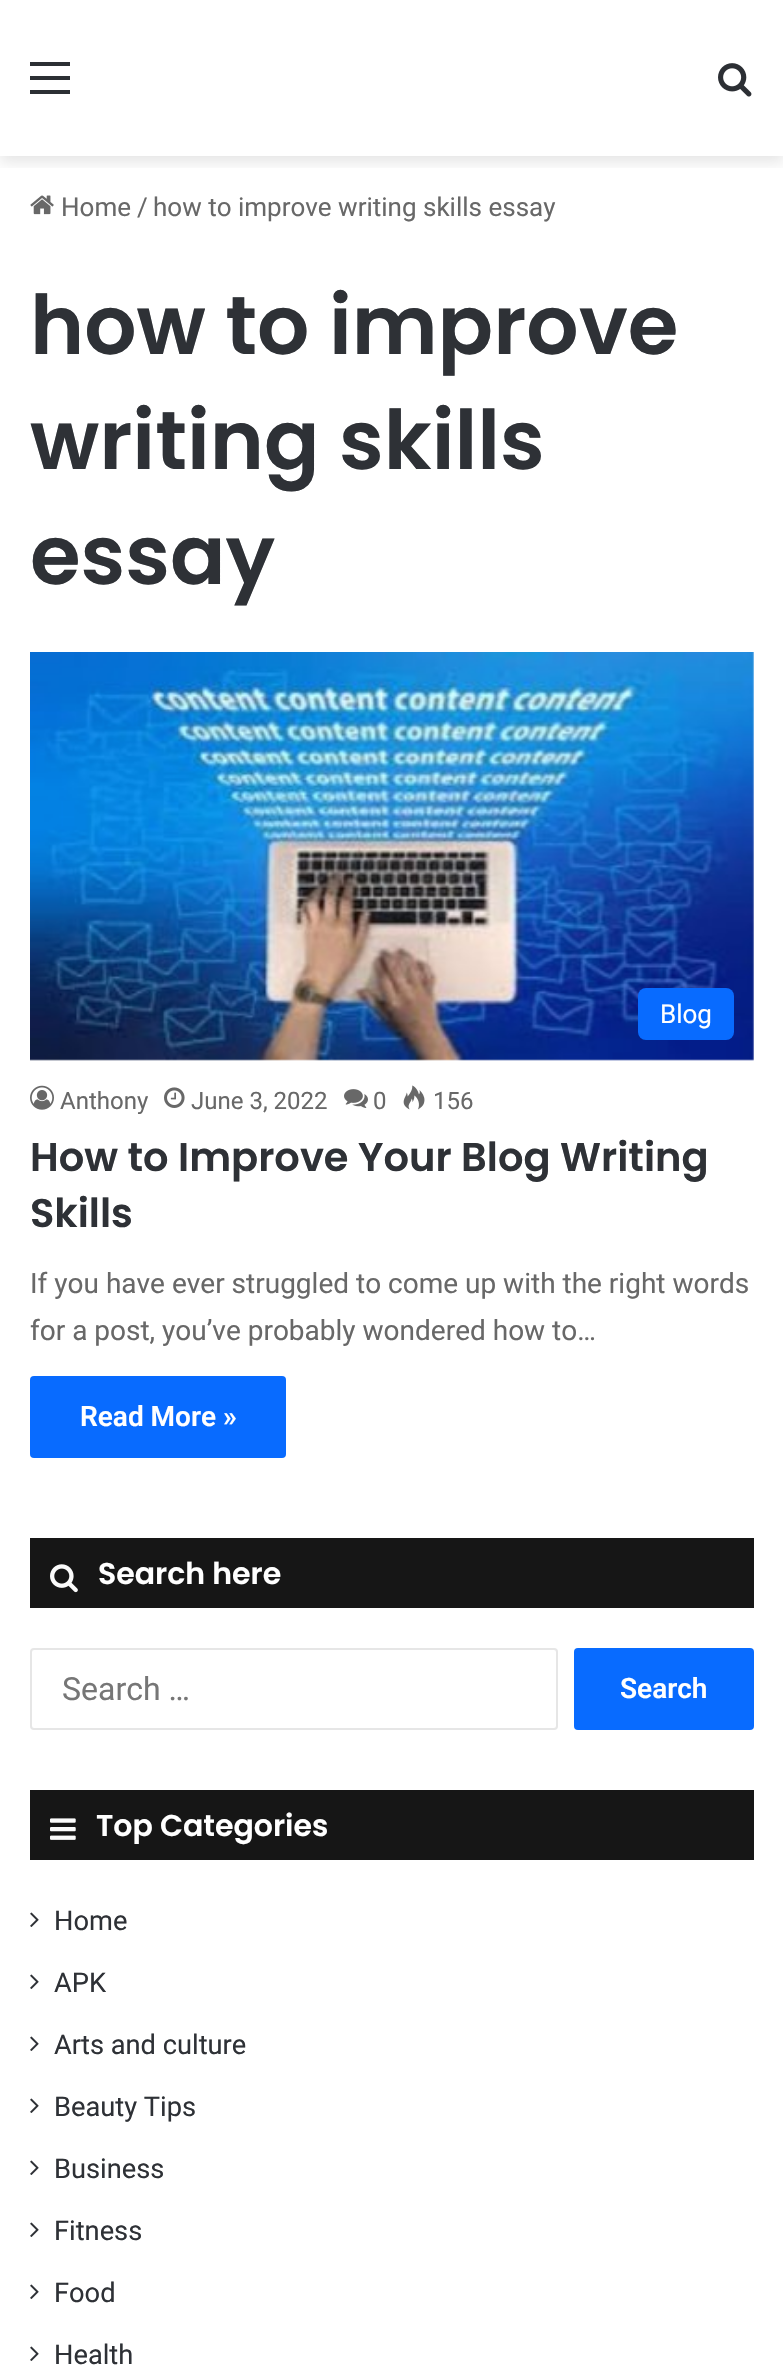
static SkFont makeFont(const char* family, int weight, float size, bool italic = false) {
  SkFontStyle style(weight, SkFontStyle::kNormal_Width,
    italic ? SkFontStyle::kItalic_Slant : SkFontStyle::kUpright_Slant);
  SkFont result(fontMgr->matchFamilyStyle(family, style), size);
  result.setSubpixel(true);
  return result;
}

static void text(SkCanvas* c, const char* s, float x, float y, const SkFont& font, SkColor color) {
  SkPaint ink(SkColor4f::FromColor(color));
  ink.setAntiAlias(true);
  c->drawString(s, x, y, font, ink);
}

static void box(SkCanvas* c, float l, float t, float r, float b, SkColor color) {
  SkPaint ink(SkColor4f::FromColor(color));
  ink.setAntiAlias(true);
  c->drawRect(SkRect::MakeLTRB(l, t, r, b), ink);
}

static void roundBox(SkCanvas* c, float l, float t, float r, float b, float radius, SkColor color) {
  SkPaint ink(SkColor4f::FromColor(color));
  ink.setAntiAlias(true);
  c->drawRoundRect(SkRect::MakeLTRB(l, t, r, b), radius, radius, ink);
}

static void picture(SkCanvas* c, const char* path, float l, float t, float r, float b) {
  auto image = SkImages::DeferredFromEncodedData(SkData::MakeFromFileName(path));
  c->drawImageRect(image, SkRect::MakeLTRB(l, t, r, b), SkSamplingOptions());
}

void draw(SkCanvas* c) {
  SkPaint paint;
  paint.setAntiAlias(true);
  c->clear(0xffffffff);
  c->save();
  c->clipRect(SkRect::MakeLTRB(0, 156, 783, 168));
  paint.setColor(0x1a000000);
  paint.setMaskFilter(SkMaskFilter::MakeBlur(kNormal_SkBlurStyle, 7));
  c->drawRect(SkRect::MakeLTRB(0, 6, 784, 162), paint);
  paint.setMaskFilter(nullptr);
  c->restore();
  box(c, 30, 76, 70, 80, 0xff2c2f34);
  box(c, 30, 62, 70, 66, 0xff2c2f34);
  box(c, 30, 90, 70, 94, 0xff2c2f34);
  picture(c, "img_01.png", 718, 63, 752, 97);
  picture(c, "img_02.png", 30, 195, 54, 215);
  SkFont face1 = makeFont("Roboto", 400, 26);
  text(c, "Home", 61, 216, face1, 0xff686868);
  text(c, "/", 137, 216, face1, 0xff686868);
  text(c, "how to improve writing skills essay", 153, 216, face1, 0xff686868);
  SkFont face2 = makeFont("Poppins", 600, 82);
  text(c, "how to improve", 30, 354, face2, 0xff2e3136);
  text(c, "writing skills", 30, 469, face2, 0xff2e3136);
  text(c, "essay", 30, 584, face2, 0xff2e3136);
  picture(c, "img_03.png", 30, 652, 754, 1061);
  roundBox(c, 638, 988, 734, 1040, 8, 0xff086bff);
  text(c, "Blog", 660, 1023, face1, 0xffffffff);
  picture(c, "img_04.png", 30, 1085, 54, 1110);
  SkFont face3 = makeFont("Roboto", 400, 24);
  text(c, "Anthony", 60, 1109, face3, 0xff686868);
  picture(c, "img_05.png", 164, 1087, 185, 1108);
  text(c, "June 3, 2022", 191, 1109, face3, 0xff686868);
  picture(c, "img_06.png", 344, 1089, 368, 1108);
  text(c, "0", 373, 1109, face3, 0xff686868);
  picture(c, "img_07.png", 403, 1085, 425, 1110);
  text(c, "156", 433, 1109, face3, 0xff686868);
  SkFont face4 = makeFont("Poppins", 600, 40);
  text(c, "How to Improve Your Blog Writing", 30, 1171, face4, 0xff2e3136);
  text(c, "Skills", 30, 1227, face4, 0xff2e3136);
  SkFont face5 = makeFont("Roboto", 400, 28);
  text(c, "If you have ever struggled to come up with the right words", 30, 1293, face5, 0xff686868);
  text(c, "for a post, you’ve probably wondered how to…", 30, 1340, face5, 0xff686868);
  roundBox(c, 30, 1376, 286, 1458, 4, 0xff086bff);
  SkFont face6 = makeFont("Roboto", 600, 28);
  text(c, "Read More »", 80, 1426, face6, 0xffffffff);
  box(c, 30, 1538, 754, 1608, 0xff161616);
  picture(c, "img_08.png", 50, 1564, 78, 1593);
  SkFont face7 = makeFont("Poppins", 600, 30);
  text(c, "Search here", 98, 1584, face7, 0xffffffff);
  paint.setStyle(SkPaint::kStroke_Style);
  paint.setStrokeWidth(2);
  paint.setColor(0xffe6e6e6);
  c->drawRoundRect(SkRect::MakeLTRB(31, 1649, 557, 1729), 3, 3, paint);
  SkFont face8 = makeFont("Roboto", 400, 32);
  text(c, "Search …", 62, 1700, face8, 0xff767676);
  roundBox(c, 574, 1648, 754, 1730, 4, 0xff086bff);
  text(c, "Search", 620, 1698, face6, 0xffffffff);
  box(c, 30, 1790, 754, 1860, 0xff161616);
  picture(c, "img_09.png", 50, 1818, 76, 1840);
  text(c, "Top Categories", 96, 1836, face7, 0xffffffff);
  picture(c, "img_10.png", 30, 1912, 39, 1927);
  SkFont face9 = makeFont("Roboto", 400, 27.25f);
  text(c, "Home", 54, 1930, face9, 0xff2e3136);
  picture(c, "img_10.png", 30, 1974, 39, 1989);
  text(c, "APK", 54, 1992, face9, 0xff2e3136);
  picture(c, "img_10.png", 30, 2036, 39, 2051);
  text(c, "Arts and culture", 54, 2054, face9, 0xff2e3136);
  picture(c, "img_10.png", 30, 2098, 39, 2113);
  text(c, "Beauty Tips", 54, 2116, face9, 0xff2e3136);
  picture(c, "img_10.png", 30, 2160, 39, 2175);
  text(c, "Business", 54, 2178, face9, 0xff2e3136);
  picture(c, "img_10.png", 30, 2222, 39, 2237);
  text(c, "Fitness", 54, 2240, face9, 0xff2e3136);
  picture(c, "img_10.png", 30, 2284, 39, 2299);
  text(c, "Food", 54, 2302, face9, 0xff2e3136);
  picture(c, "img_10.png", 30, 2346, 39, 2361);
  text(c, "Health", 54, 2364, face9, 0xff2e3136);
}
